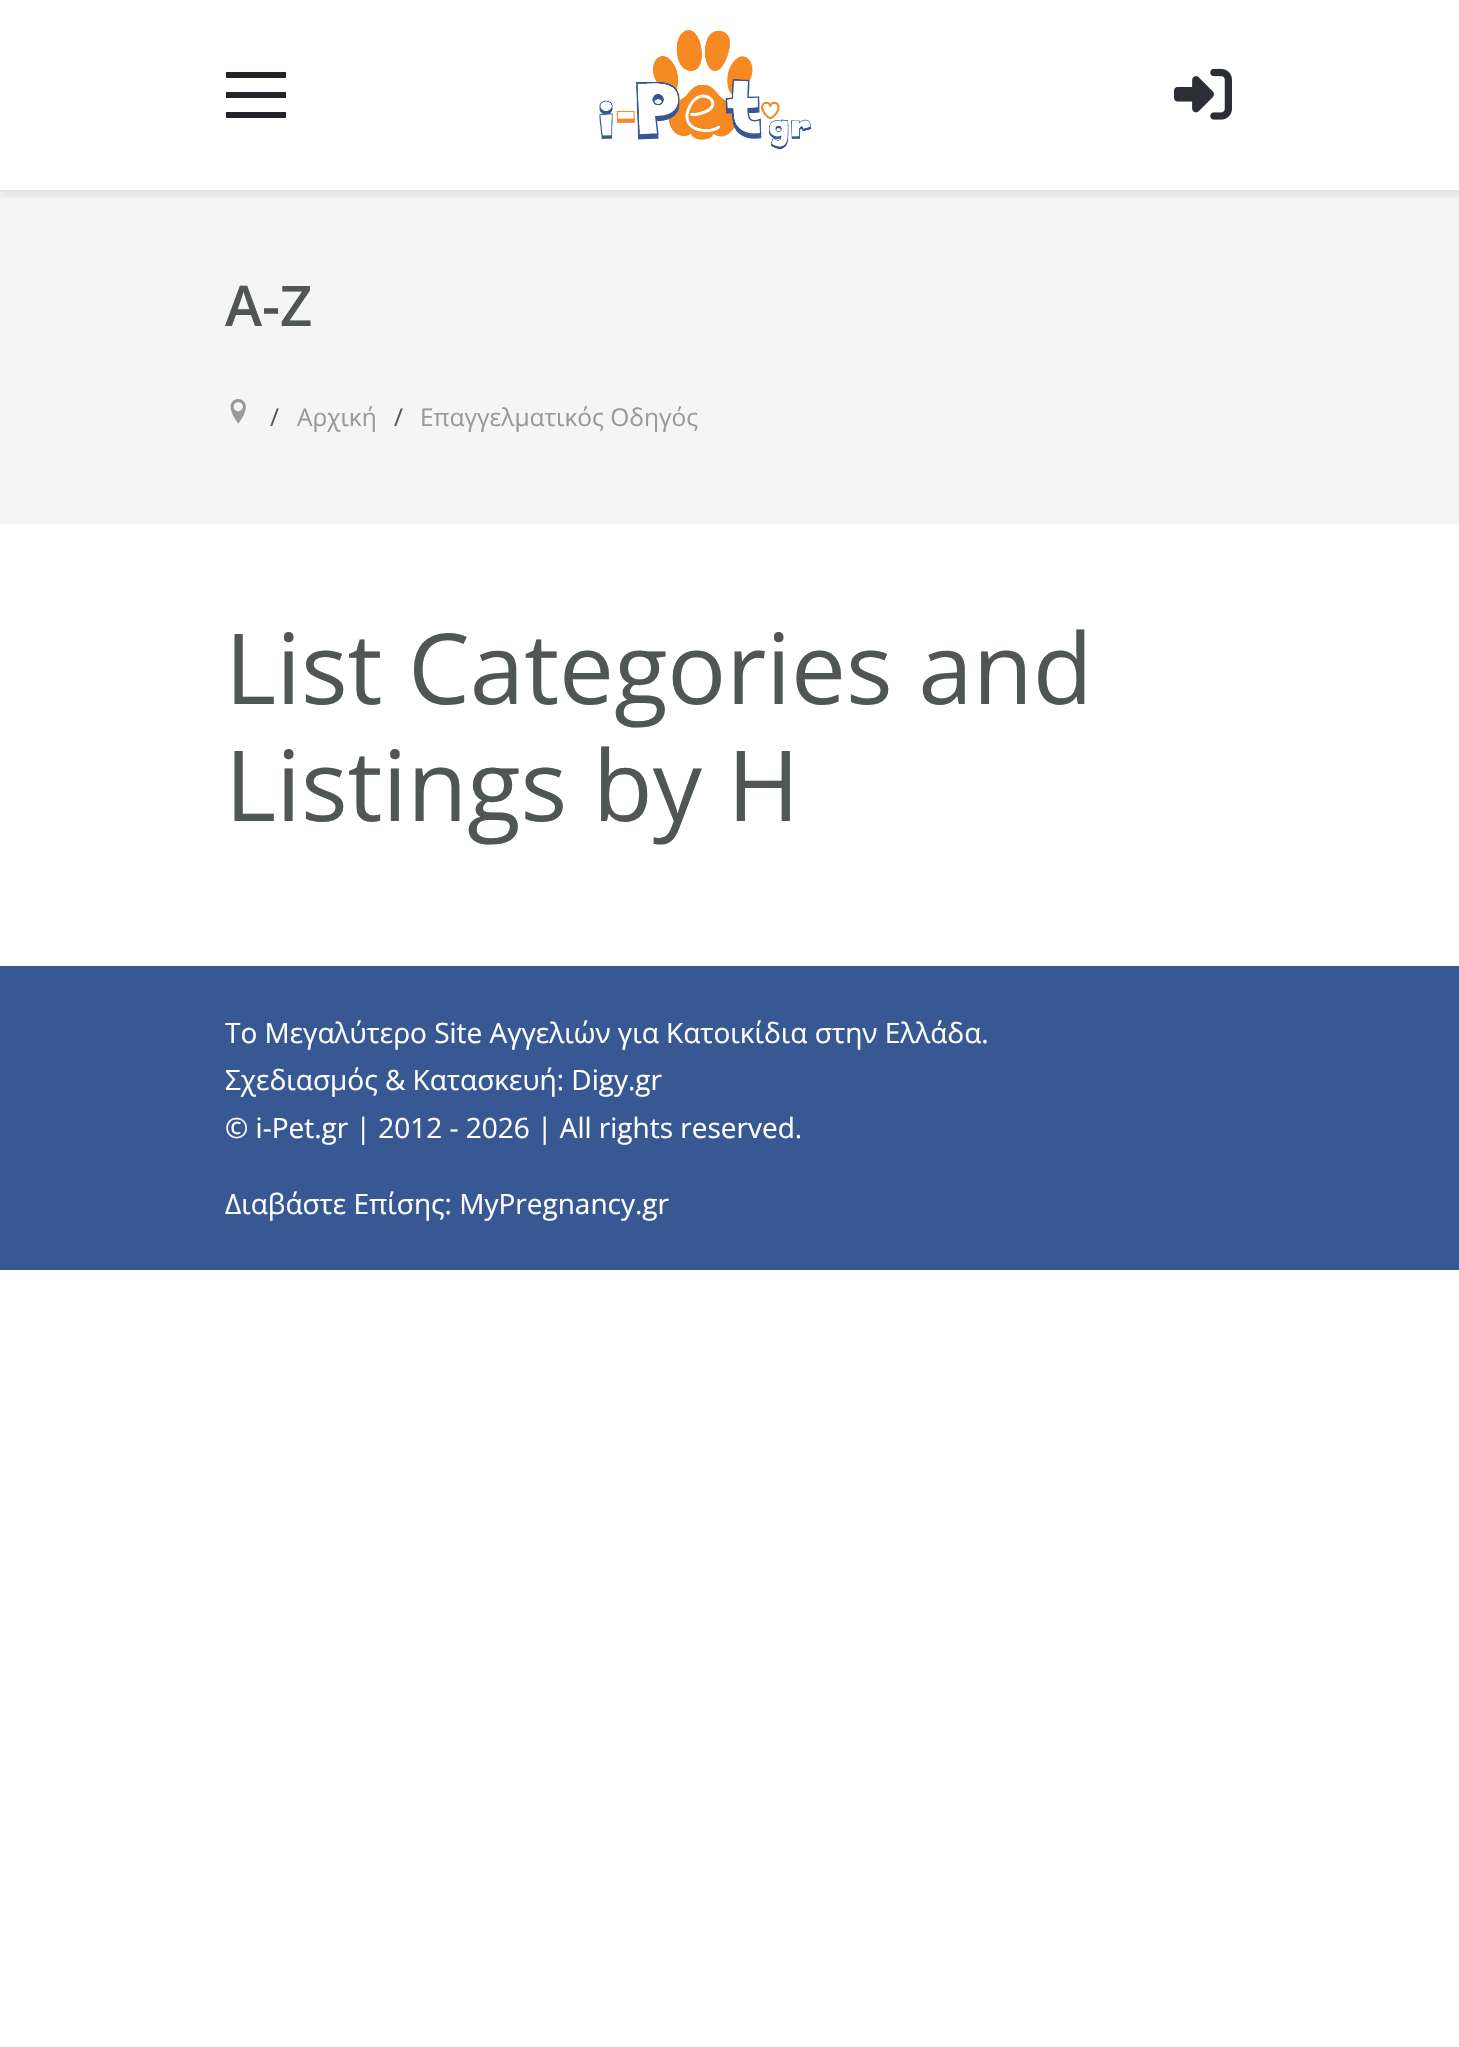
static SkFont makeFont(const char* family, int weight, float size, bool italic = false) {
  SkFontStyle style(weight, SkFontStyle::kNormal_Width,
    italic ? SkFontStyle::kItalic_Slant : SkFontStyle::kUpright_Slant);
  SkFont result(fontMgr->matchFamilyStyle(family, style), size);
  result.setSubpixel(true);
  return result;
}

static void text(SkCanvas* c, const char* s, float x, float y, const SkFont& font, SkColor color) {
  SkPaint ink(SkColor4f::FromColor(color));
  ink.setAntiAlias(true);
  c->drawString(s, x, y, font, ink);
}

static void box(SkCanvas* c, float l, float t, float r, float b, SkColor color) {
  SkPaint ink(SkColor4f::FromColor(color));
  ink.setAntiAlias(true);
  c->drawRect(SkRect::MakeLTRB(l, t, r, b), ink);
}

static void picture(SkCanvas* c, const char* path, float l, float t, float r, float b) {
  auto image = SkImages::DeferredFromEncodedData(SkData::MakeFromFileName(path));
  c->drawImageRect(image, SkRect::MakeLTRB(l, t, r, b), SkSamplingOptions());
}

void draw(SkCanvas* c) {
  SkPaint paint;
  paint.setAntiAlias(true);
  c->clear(0xffffffff);
  box(c, 0, 192, 1459, 524, 0xfff5f5f5);
  c->save();
  c->clipRect(SkRect::MakeLTRB(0, 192, 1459, 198));
  paint.setColor(0x12000000);
  paint.setMaskFilter(SkMaskFilter::MakeBlur(kNormal_SkBlurStyle, 3.5f));
  c->drawRect(SkRect::MakeLTRB(0, 4, 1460, 196), paint);
  paint.setMaskFilter(nullptr);
  c->restore();
  box(c, 0, 190, 1459, 192, 0xffdee2e6);
  box(c, 226, 92, 286, 98, 0xff212529);
  box(c, 226, 72, 286, 78, 0xff212529);
  box(c, 226, 112, 286, 118, 0xff212529);
  picture(c, "img_01.png", 599, 30, 812, 150);
  picture(c, "img_02.png", 1174, 68, 1232, 120);
  SkFont face1 = makeFont("Open Sans", 600, 56);
  text(c, "A-Z", 225, 326, face1, 0xff505656);
  picture(c, "img_03.png", 230, 399, 246, 424);
  SkFont face2 = makeFont("Open Sans", 400, 24.5f);
  text(c, "/", 270, 426, face2, 0xff56595c);
  text(c, "Αρχική", 297, 426, face2, 0xff999999);
  text(c, "/", 394, 426, face2, 0xff56595c);
  text(c, "Επαγγελματικός Οδηγός", 420, 426, face2, 0xff999999);
  SkFont face3 = makeFont("Open Sans", 400, 98);
  text(c, "List Categories and", 225, 704, face3, 0xff505656);
  text(c, "Listings by H", 225, 821, face3, 0xff505656);
  box(c, 0, 966, 1459, 1270, 0xff385893);
  SkFont face4 = makeFont("Open Sans", 400, 28);
  text(c, "Το Μεγαλύτερο Site Αγγελιών για Κατοικίδια στην Ελλάδα.", 225, 1043, face4, 0xffffffff);
  text(c, "Σχεδιασμός & Κατασκευή: Digy.gr", 225, 1090, face4, 0xffffffff);
  text(c, "© i-Pet.gr | 2012 - 2026 | All rights reserved.", 225, 1138, face4, 0xffffffff);
  text(c, "Διαβάστε Επίσης: MyPregnancy.gr", 225, 1214, face4, 0xffffffff);
}
